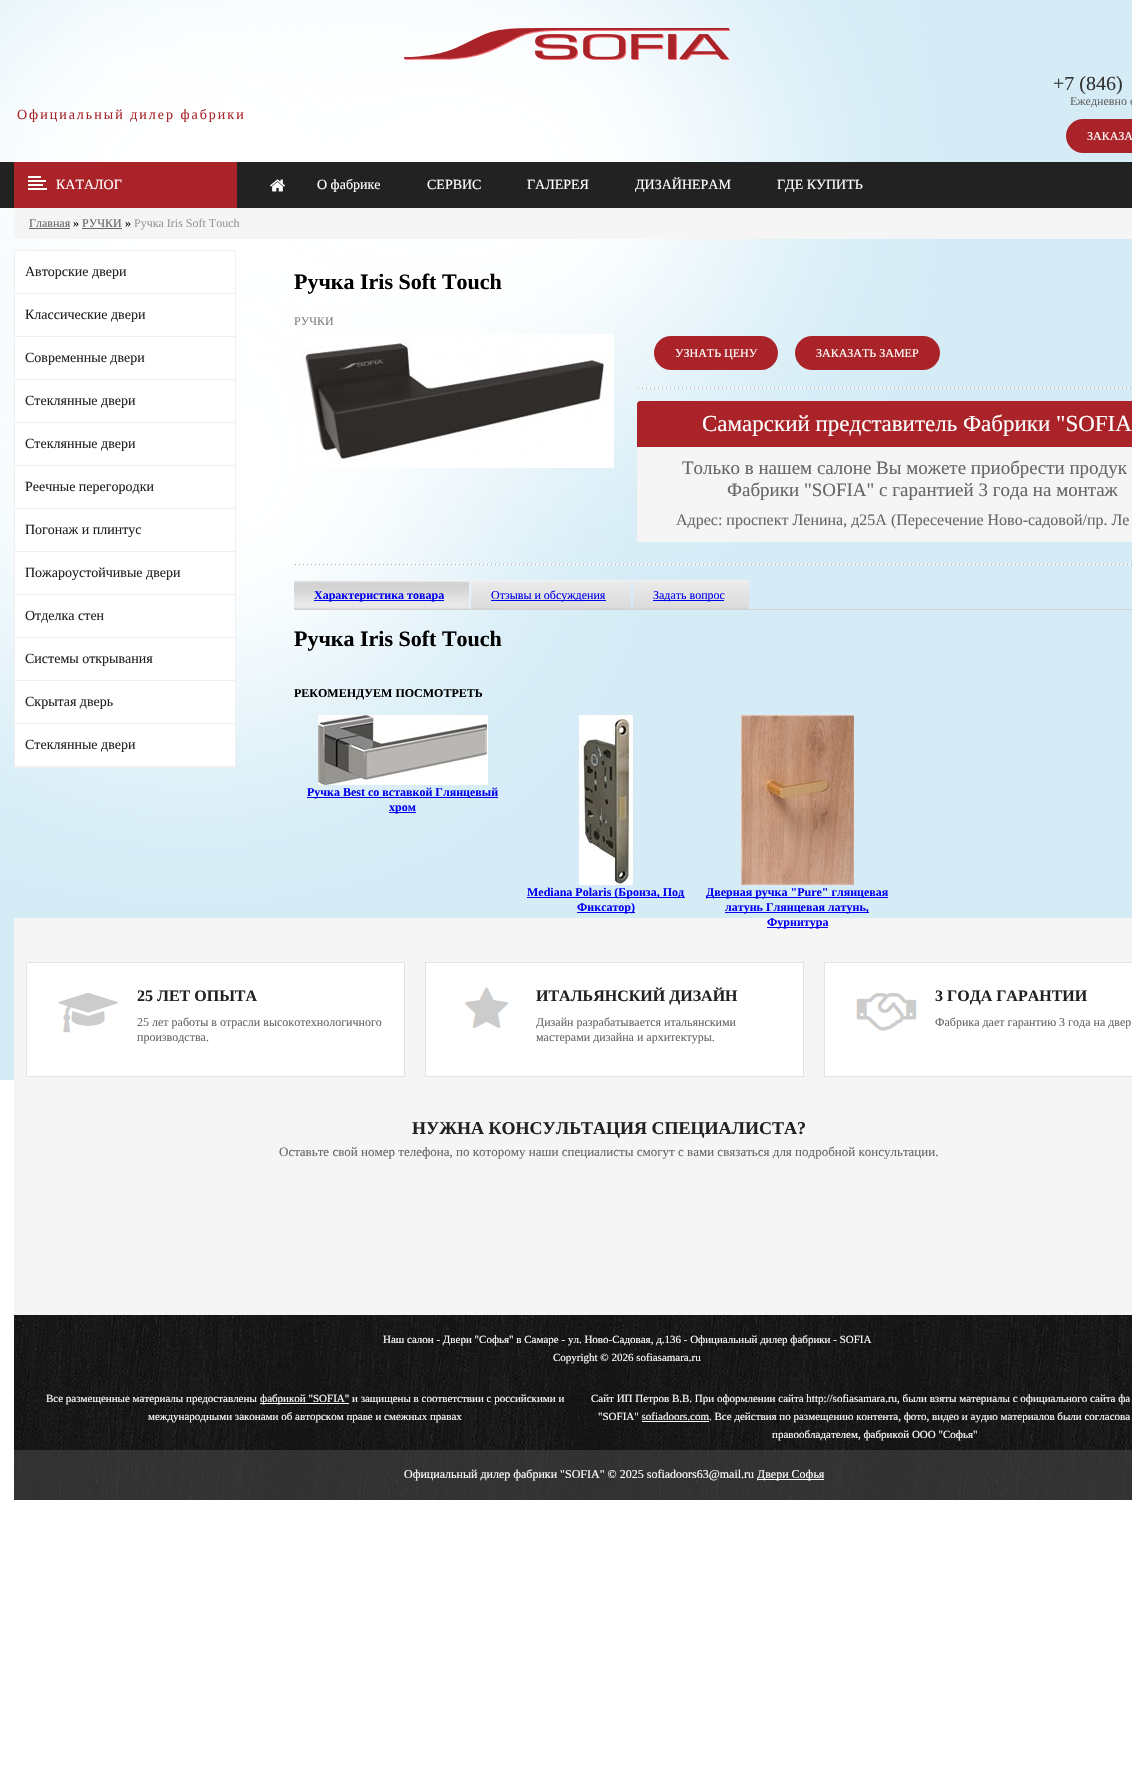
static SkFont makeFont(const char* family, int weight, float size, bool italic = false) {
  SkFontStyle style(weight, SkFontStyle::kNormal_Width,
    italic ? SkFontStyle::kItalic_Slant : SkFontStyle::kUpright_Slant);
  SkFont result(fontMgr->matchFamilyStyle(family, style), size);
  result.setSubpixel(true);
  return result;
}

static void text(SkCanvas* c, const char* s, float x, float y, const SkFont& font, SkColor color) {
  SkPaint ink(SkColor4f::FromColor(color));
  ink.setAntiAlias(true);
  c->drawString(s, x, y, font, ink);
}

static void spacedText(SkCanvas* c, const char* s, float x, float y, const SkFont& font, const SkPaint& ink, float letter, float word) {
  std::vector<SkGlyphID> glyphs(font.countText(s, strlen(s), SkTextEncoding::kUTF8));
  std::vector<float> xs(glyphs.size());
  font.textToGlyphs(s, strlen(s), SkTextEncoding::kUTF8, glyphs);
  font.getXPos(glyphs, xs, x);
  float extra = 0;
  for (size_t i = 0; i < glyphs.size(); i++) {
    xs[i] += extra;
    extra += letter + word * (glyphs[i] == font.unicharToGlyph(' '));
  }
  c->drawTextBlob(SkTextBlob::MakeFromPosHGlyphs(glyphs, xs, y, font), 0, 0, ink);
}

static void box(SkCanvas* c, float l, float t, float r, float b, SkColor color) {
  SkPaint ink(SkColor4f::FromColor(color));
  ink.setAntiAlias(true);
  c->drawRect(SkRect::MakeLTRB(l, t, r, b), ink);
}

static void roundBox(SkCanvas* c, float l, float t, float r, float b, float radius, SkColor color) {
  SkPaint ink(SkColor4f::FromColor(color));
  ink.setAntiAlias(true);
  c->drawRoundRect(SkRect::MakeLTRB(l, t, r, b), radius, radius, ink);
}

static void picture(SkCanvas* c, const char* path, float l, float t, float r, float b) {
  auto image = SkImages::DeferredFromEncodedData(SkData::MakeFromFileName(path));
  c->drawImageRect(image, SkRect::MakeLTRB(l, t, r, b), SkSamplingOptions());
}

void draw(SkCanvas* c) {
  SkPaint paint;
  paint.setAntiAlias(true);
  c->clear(0xffffffff);
  picture(c, "img_01.png", 0, 0, 1132, 1080);
  picture(c, "img_02.png", 404, 28, 730, 60);
  SkFont face1 = makeFont("Liberation Serif", 400, 14);
  paint.setColor(0xffaa2328);
  spacedText(c, "Официальный дилер фабрики", 17, 119, face1, paint, 2, 0);
  SkFont face2 = makeFont("Liberation Serif", 400, 20);
  text(c, "+7 (846)", 1053, 90, face2, 0xff323232);
  SkFont face3 = makeFont("Liberation Serif", 400, 12);
  text(c, "Ежедневно с", 1070, 105, face3, 0xff666666);
  roundBox(c, 1066, 119, 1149, 153, 17, 0xffaa2328);
  text(c, "ЗАКАЗА", 1087, 140, face3, 0xffffffff);
  box(c, 0, 162, 1132, 208, 0xff222222);
  box(c, 14, 162, 237, 208, 0xffaa2328);
  picture(c, "img_03.png", 28, 176, 47, 190);
  text(c, "КАТАЛОГ", 56, 189, face1, 0xffffffff);
  picture(c, "img_04.png", 270, 179, 285, 192);
  text(c, "О фабрике", 317, 189, face1, 0xffffffff);
  text(c, "СЕРВИС", 427, 189, face1, 0xffffffff);
  text(c, "ГАЛЕРЕЯ", 527, 189, face1, 0xffffffff);
  text(c, "ДИЗАЙНЕРАМ", 635, 189, face1, 0xffffffff);
  text(c, "ГДЕ КУПИТЬ", 777, 189, face1, 0xffffffff);
  roundBox(c, 14, 208, 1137, 239, 5, 0xfff5f5f5);
  text(c, "Главная", 29, 227, face3, 0xff666666);
  box(c, 29, 228, 70, 229, 0xff666666);
  text(c, "»", 73, 227, face3, 0xff000000);
  text(c, "РУЧКИ", 82, 227, face3, 0xff666666);
  box(c, 82, 228, 122, 229, 0xff666666);
  text(c, "»", 125, 227, face3, 0xff000000);
  text(c, "Ручка Iris Soft Touch", 134, 227, face3, 0xff999999);
  box(c, 15, 251, 235, 766, 0xffffffff);
  paint.setStyle(SkPaint::kStroke_Style);
  paint.setStrokeWidth(1);
  paint.setColor(0xffefefef);
  c->drawRect(SkRect::MakeLTRB(14.5f, 250.5f, 235.5f, 767.5f), paint);
  box(c, 15, 293, 235, 294, 0xffefefef);
  text(c, "Авторские двери", 25, 276, face1, 0xff222222);
  box(c, 15, 336, 235, 337, 0xffefefef);
  text(c, "Классические двери", 25, 319, face1, 0xff222222);
  box(c, 15, 379, 235, 380, 0xffefefef);
  text(c, "Современные двери", 25, 362, face1, 0xff222222);
  box(c, 15, 422, 235, 423, 0xffefefef);
  text(c, "Стеклянные двери", 25, 405, face1, 0xff222222);
  box(c, 15, 465, 235, 466, 0xffefefef);
  text(c, "Стеклянные двери", 25, 448, face1, 0xff222222);
  box(c, 15, 508, 235, 509, 0xffefefef);
  text(c, "Реечные перегородки", 25, 491, face1, 0xff222222);
  box(c, 15, 551, 235, 552, 0xffefefef);
  text(c, "Погонаж и плинтус", 25, 534, face1, 0xff222222);
  box(c, 15, 594, 235, 595, 0xffefefef);
  text(c, "Пожароустойчивые двери", 25, 577, face1, 0xff222222);
  box(c, 15, 637, 235, 638, 0xffefefef);
  text(c, "Отделка стен", 25, 620, face1, 0xff222222);
  box(c, 15, 680, 235, 681, 0xffefefef);
  text(c, "Системы открывания", 25, 663, face1, 0xff222222);
  box(c, 15, 723, 235, 724, 0xffefefef);
  text(c, "Скрытая дверь", 25, 706, face1, 0xff222222);
  box(c, 15, 766, 235, 767, 0xffefefef);
  text(c, "Стеклянные двери", 25, 749, face1, 0xff222222);
  SkFont face4 = makeFont("Liberation Serif", 700, 22);
  text(c, "Ручка Iris Soft Touch", 294, 289, face4, 0xff000000);
  text(c, "РУЧКИ", 294, 325, face3, 0xff828282);
  picture(c, "img_05.png", 302, 334, 614, 468);
  roundBox(c, 654, 336, 778, 370, 17, 0xffaa2328);
  text(c, "УЗНАТЬ ЦЕНУ", 675, 357, face3, 0xffffffff);
  roundBox(c, 795, 336, 940, 370, 17, 0xffaa2328);
  text(c, "ЗАКАЗАТЬ ЗАМЕР", 816, 357, face3, 0xffffffff);
  picture(c, "img_06.png", 637, 388, 1132, 389);
  paint.setStyle(SkPaint::kFill_Style);
  paint.setColor(0xffaa2328);
  c->drawPath(SkPathBuilder().moveTo(640, 401).lineTo(1132, 401).cubicTo(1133.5f, 401, 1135, 402.5f, 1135, 404).lineTo(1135, 447).lineTo(637, 447).lineTo(637, 404).cubicTo(637, 402.5f, 638.5f, 401, 640, 401).close().detach(), paint);
  SkFont face5 = makeFont("Liberation Serif", 400, 23);
  text(c, "Самарский представитель Фабрики \"SOFIA", 702, 431, face5, 0xffffffff);
  box(c, 637, 447, 1132, 542, 0xfff5f5f5);
  SkFont face6 = makeFont("Liberation Serif", 400, 19);
  text(c, "Только в нашем салоне Вы можете приобрести продук", 682, 474, face6, 0xff666666);
  text(c, "Фабрики \"SOFIA\" с гарантией 3 года на монтаж", 727, 496, face6, 0xff666666);
  SkFont face7 = makeFont("Liberation Serif", 400, 16);
  text(c, "Адрес: проспект Ленина, д25А (Пересечение Ново-садовой/пр. Ле", 676, 525, face7, 0xff666666);
  picture(c, "img_07.png", 294, 564, 1132, 565);
  box(c, 294, 609, 1132, 610, 0xffd2d2d2);
  picture(c, "img_08.png", 294, 580, 469, 609);
  box(c, 314, 600, 444, 601, 0xff0000ee);
  SkFont face8 = makeFont("Liberation Serif", 700, 12);
  text(c, "Характеристика товара", 314, 599, face8, 0xff0000ee);
  picture(c, "img_09.png", 471, 580, 631, 609);
  box(c, 491, 600, 606, 601, 0xff0000ee);
  text(c, "Отзывы и обсуждения", 491, 599, face3, 0xff0000ee);
  picture(c, "img_10.png", 633, 580, 749, 609);
  box(c, 653, 600, 724, 601, 0xff0000ee);
  text(c, "Задать вопрос", 653, 599, face3, 0xff0000ee);
  text(c, "Ручка Iris Soft Touch", 294, 646, face4, 0xff000000);
  text(c, "РЕКОМЕНДУЕМ ПОСМОТРЕТЬ", 294, 697, face8, 0xff000000);
  picture(c, "img_11.png", 318, 715, 488, 785);
  box(c, 307, 797, 498, 798, 0xff0000ee);
  text(c, "Ручка Best со вставкой Глянцевый", 307, 796, face8, 0xff0000ee);
  box(c, 389, 812, 416, 813, 0xff0000ee);
  text(c, "хром", 389, 811, face8, 0xff0000ee);
  picture(c, "img_12.png", 579, 715, 633, 885);
  box(c, 527, 897, 685, 898, 0xff0000ee);
  text(c, "Mediana Polaris (Бронза, Под", 527, 896, face8, 0xff0000ee);
  box(c, 577, 912, 635, 913, 0xff0000ee);
  text(c, "Фиксатор)", 577, 911, face8, 0xff0000ee);
  picture(c, "img_13.png", 741, 715, 854, 885);
  box(c, 706, 897, 888, 898, 0xff0000ee);
  text(c, "Дверная ручка \"Pure\" глянцевая", 706, 896, face8, 0xff0000ee);
  box(c, 725, 912, 869, 913, 0xff0000ee);
  text(c, "латунь Глянцевая латунь,", 725, 911, face8, 0xff0000ee);
  box(c, 14, 918, 1132, 1315, 0xfff5f5f5);
  box(c, 767, 927, 828, 928, 0xff0000ee);
  text(c, "Фурнитура", 767, 926, face8, 0xff0000ee);
  box(c, 27, 963, 404, 1076, 0xffffffff);
  picture(c, "img_14.png", 58, 992, 118, 1033);
  paint.setStyle(SkPaint::kStroke_Style);
  paint.setColor(0xffe3e3e3);
  c->drawRect(SkRect::MakeLTRB(26.5f, 962.5f, 404.5f, 1076.5f), paint);
  SkFont face9 = makeFont("Liberation Serif", 700, 16);
  text(c, "25 ЛЕТ ОПЫТА", 137, 1001, face9, 0xff222222);
  text(c, "25 лет работы в отрасли высокотехнологичного", 137, 1026, face3, 0xff666666);
  text(c, "производства.", 137, 1041, face3, 0xff666666);
  box(c, 426, 963, 803, 1076, 0xffffffff);
  picture(c, "img_15.png", 464, 987, 509, 1029);
  c->drawRect(SkRect::MakeLTRB(425.5f, 962.5f, 803.5f, 1076.5f), paint);
  text(c, "ИТАЛЬЯНСКИЙ ДИЗАЙН", 536, 1001, face9, 0xff222222);
  text(c, "Дизайн разрабатывается итальянскими", 536, 1026, face3, 0xff666666);
  text(c, "мастерами дизайна и архитектуры.", 536, 1041, face3, 0xff666666);
  box(c, 825, 963, 1132, 1076, 0xffffffff);
  picture(c, "img_16.png", 856, 993, 917, 1031);
  c->drawRect(SkRect::MakeLTRB(824.5f, 962.5f, 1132.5f, 1076.5f), paint);
  text(c, "3 ГОДА ГАРАНТИИ", 935, 1001, face9, 0xff222222);
  text(c, "Фабрика дает гарантию 3 года на двер", 935, 1026, face3, 0xff666666);
  SkFont face10 = makeFont("Liberation Serif", 700, 18);
  text(c, "НУЖНА КОНСУЛЬТАЦИЯ СПЕЦИАЛИСТА?", 412, 1134, face10, 0xff222222);
  SkFont face11 = makeFont("Liberation Serif", 400, 13);
  text(c, "Оставьте свой номер телефона, по которому наши специалисты смогут с вами связаться для подробной консультации.", 279, 1156, face11, 0xff666666);
  picture(c, "img_17.png", 14, 1315, 1132, 1500);
  SkFont face12 = makeFont("Liberation Serif", 400, 11);
  text(c, "Наш салон - Двери \"Софья\" в Самаре - ул. Ново-Садовая, д.136 - Официальный дилер фабрики - SOFIA", 383, 1343, face12, 0xffffffff);
  text(c, "Copyright © 2026 sofiasamara.ru", 553, 1361, face12, 0xffffffff);
  text(c, "Все размещенные материалы предоставлены", 46, 1402, face12, 0xffffffff);
  box(c, 260, 1403, 349, 1404, 0xffffffff);
  text(c, "фабрикой \"SOFIA\" и защищены в соответствии с российскими и", 260, 1402, face12, 0xffffffff);
  text(c, "международными законами об авторском праве и смежных правах", 148, 1420, face12, 0xffffffff);
  text(c, "Сайт ИП Петров В.В. При оформлении сайта http://sofiasamara.ru, были взяты материалы с официального сайта фа", 591, 1402, face12, 0xffffffff);
  text(c, "\"SOFIA\" sofiadoors.com. Все действия по размещению контента, фото, видео и аудио материалов были согласова", 598, 1420, face12, 0xffffffff);
  box(c, 642, 1421, 709, 1422, 0xffffffff);
  text(c, "правообладателем, фабрикой ООО \"Софья\"", 772, 1438, face12, 0xffffffff);
  box(c, 14, 1450, 1132, 1500, 0x99444444);
  text(c, "Официальный дилер фабрики \"SOFIA\" © 2025 sofiadoors63@mail.ru", 404, 1478, face3, 0xffffffff);
  box(c, 757, 1479, 824, 1480, 0xffffffff);
  text(c, "Двери Софья", 757, 1478, face3, 0xffffffff);
}
